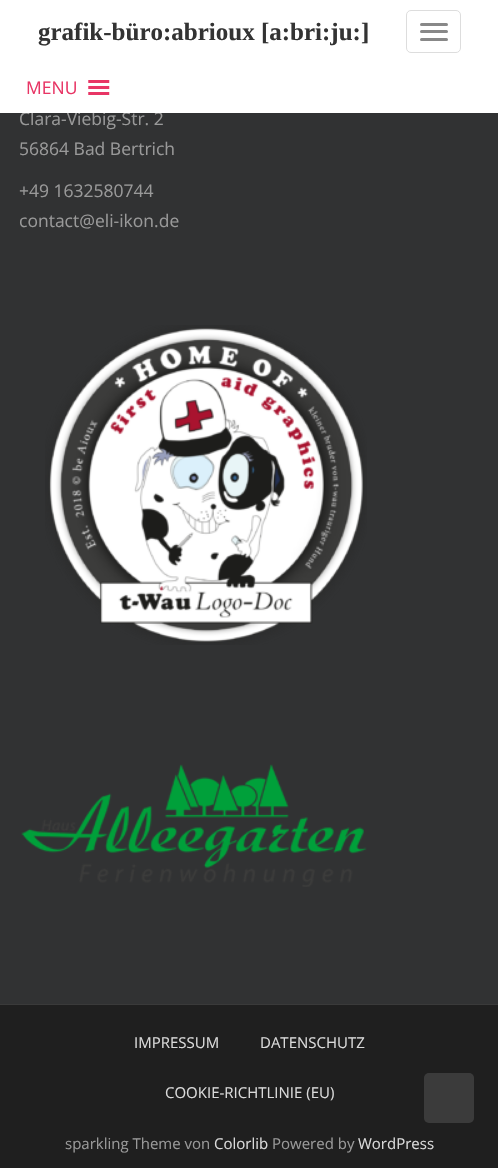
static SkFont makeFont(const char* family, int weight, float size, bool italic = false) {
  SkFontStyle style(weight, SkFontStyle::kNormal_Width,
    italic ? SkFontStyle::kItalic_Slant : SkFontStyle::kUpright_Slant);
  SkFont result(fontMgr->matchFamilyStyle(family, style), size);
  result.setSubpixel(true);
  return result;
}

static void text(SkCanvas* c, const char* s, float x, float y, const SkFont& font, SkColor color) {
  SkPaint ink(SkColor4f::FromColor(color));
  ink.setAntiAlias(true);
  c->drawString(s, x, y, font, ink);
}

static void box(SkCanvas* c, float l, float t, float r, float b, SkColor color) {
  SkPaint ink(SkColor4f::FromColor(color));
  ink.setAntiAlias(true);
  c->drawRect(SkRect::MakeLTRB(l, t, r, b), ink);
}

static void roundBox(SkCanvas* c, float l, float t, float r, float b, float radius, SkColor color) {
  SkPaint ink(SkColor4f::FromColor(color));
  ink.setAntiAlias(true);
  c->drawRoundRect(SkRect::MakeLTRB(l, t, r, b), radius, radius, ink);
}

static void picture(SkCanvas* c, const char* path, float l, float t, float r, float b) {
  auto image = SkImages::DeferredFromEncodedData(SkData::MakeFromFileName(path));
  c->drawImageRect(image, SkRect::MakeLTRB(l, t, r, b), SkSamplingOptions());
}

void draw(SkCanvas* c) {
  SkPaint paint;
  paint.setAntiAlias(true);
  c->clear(0xff313233);
  SkFont face1 = makeFont("Open Sans", 400, 17.5f);
  text(c, "Clara-Viebig-Str. 2", 19, 125, face1, 0xff999999);
  box(c, 0, 0, 498, 113, 0xffffffff);
  SkFont face2 = makeFont("Liberation Serif", 700, 25);
  text(c, "grafik-büro:abrioux [a:bri:ju:]", 38, 40, face2, 0xff333333);
  paint.setStyle(SkPaint::kStroke_Style);
  paint.setStrokeWidth(1);
  paint.setColor(0xffdddddd);
  c->drawRoundRect(SkRect::MakeLTRB(406.5f, 10.5f, 460.5f, 52.5f), 4.5f, 4.5f, paint);
  roundBox(c, 420, 23, 448, 26, 1.5f, 0xff888888);
  roundBox(c, 420, 30, 448, 33, 1.5f, 0xff888888);
  roundBox(c, 420, 38, 448, 41, 1.5f, 0xff888888);
  text(c, "MENU", 26, 94, face1, 0xffe83565);
  picture(c, "img_01.png", 88, 80, 110, 95);
  text(c, "56864 Bad Bertrich", 19, 155, face1, 0xff999999);
  text(c, "+49 1632580744", 19, 197, face1, 0xff999999);
  text(c, "contact@eli-ikon.de", 19, 227, face1, 0xff999999);
  picture(c, "img_02.png", 45, 325, 367, 645);
  picture(c, "img_03.png", 21, 764, 367, 887);
  box(c, 0, 1005, 498, 1168, 0xff1f1f1f);
  box(c, 0, 1004, 498, 1005, 0xff3a3a3a);
  SkFont face3 = makeFont("Open Sans", 400, 15);
  text(c, "IMPRESSUM", 134, 1048, face3, 0xffdadada);
  text(c, "DATENSCHUTZ", 260, 1048, face3, 0xffdadada);
  text(c, "COOKIE-RICHTLINIE (EU)", 165, 1098, face3, 0xffdadada);
  text(c, "sparkling Theme von", 65, 1149, face3, 0xff999999);
  text(c, "Colorlib", 214, 1149, face3, 0xffdadada);
  text(c, "Powered by", 272, 1149, face3, 0xff999999);
  text(c, "WordPress", 358, 1149, face3, 0xffdadada);
  roundBox(c, 424, 1073, 474, 1123, 5, 0xff3b3b3b);
}
